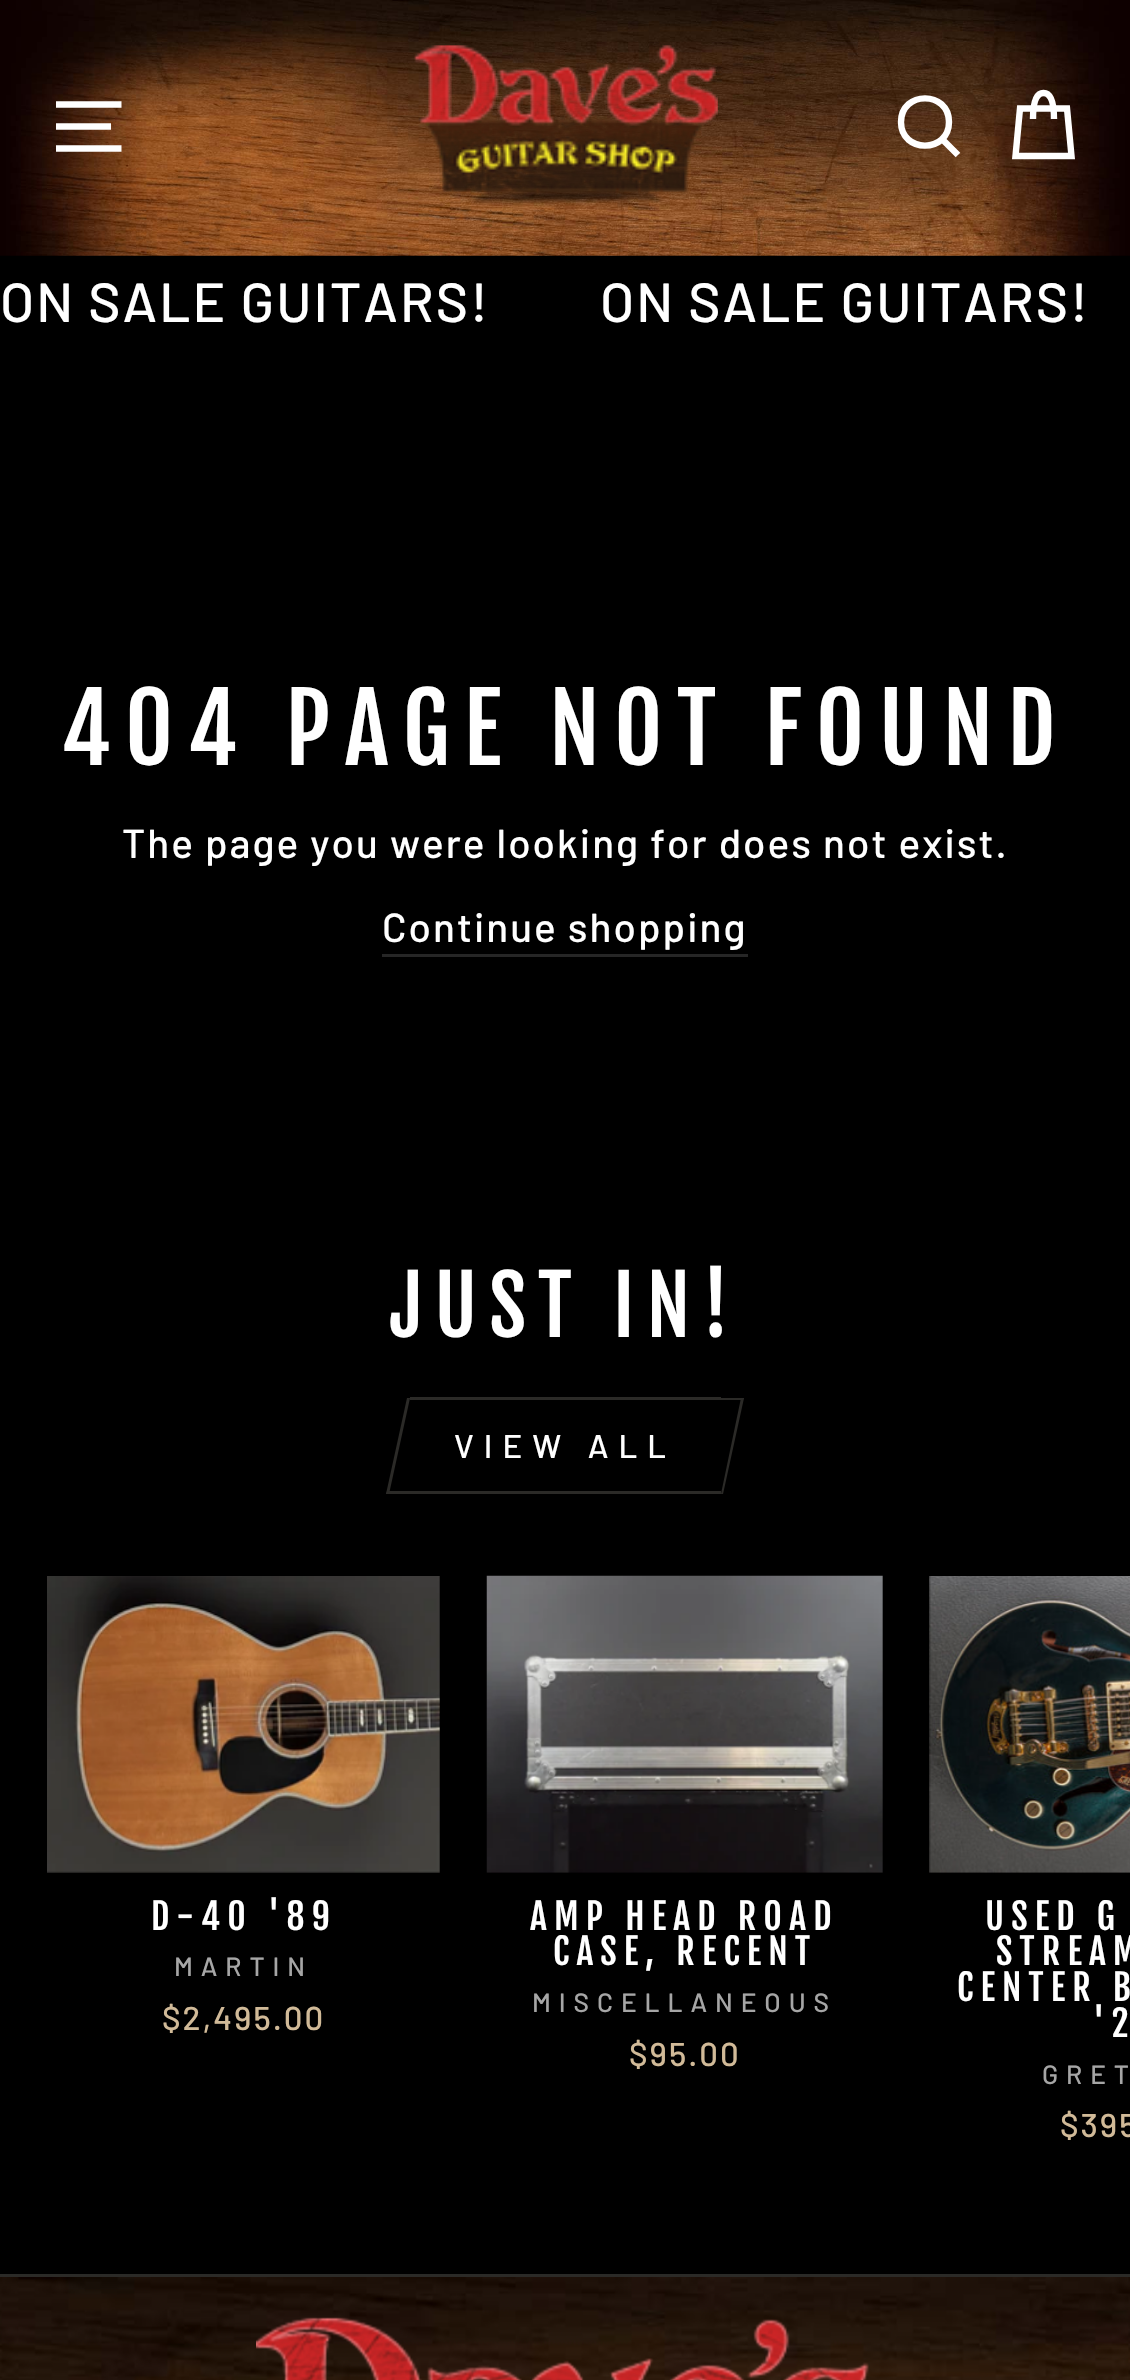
static SkFont makeFont(const char* family, int weight, float size, bool italic = false) {
  SkFontStyle style(weight, SkFontStyle::kNormal_Width,
    italic ? SkFontStyle::kItalic_Slant : SkFontStyle::kUpright_Slant);
  SkFont result(fontMgr->matchFamilyStyle(family, style), size);
  result.setSubpixel(true);
  return result;
}

static void spacedText(SkCanvas* c, const char* s, float x, float y, const SkFont& font, const SkPaint& ink, float letter, float word) {
  std::vector<SkGlyphID> glyphs(font.countText(s, strlen(s), SkTextEncoding::kUTF8));
  std::vector<float> xs(glyphs.size());
  font.textToGlyphs(s, strlen(s), SkTextEncoding::kUTF8, glyphs);
  font.getXPos(glyphs, xs, x);
  float extra = 0;
  for (size_t i = 0; i < glyphs.size(); i++) {
    xs[i] += extra;
    extra += letter + word * (glyphs[i] == font.unicharToGlyph(' '));
  }
  c->drawTextBlob(SkTextBlob::MakeFromPosHGlyphs(glyphs, xs, y, font), 0, 0, ink);
}

static void box(SkCanvas* c, float l, float t, float r, float b, SkColor color) {
  SkPaint ink(SkColor4f::FromColor(color));
  ink.setAntiAlias(true);
  c->drawRect(SkRect::MakeLTRB(l, t, r, b), ink);
}

static void picture(SkCanvas* c, const char* path, float l, float t, float r, float b) {
  auto image = SkImages::DeferredFromEncodedData(SkData::MakeFromFileName(path));
  c->drawImageRect(image, SkRect::MakeLTRB(l, t, r, b), SkSamplingOptions());
}

void draw(SkCanvas* c) {
  SkPaint paint;
  paint.setAntiAlias(true);
  c->clear(0xff000000);
  picture(c, "img_01.png", 0, 0, 1130, 256);
  paint.setStyle(SkPaint::kStroke_Style);
  paint.setStrokeWidth(6.4f);
  paint.setColor(0xffffffff);
  c->drawPath(SkPathBuilder().moveTo(56, 104.5f).lineTo(121.5f, 104.5f).moveTo(56, 126.5f).lineTo(111, 126.5f).moveTo(56, 148.5f).lineTo(121.5f, 148.5f).detach(), paint);
  picture(c, "img_02.png", 414, 45, 718, 205);
  c->drawPath(SkPathBuilder().moveTo(949, 122).cubicTo(949, 153.5f, 901, 153.5f, 901, 122).cubicTo(901, 90.5f, 949, 90.5f, 949, 122).close().moveTo(958, 155).lineTo(942.5f, 139.5f).detach(), paint);
  c->drawPath(SkPathBuilder().moveTo(1033, 119).cubicTo(1033, 98.5f, 1038, 93, 1043.5f, 93).cubicTo(1049, 93, 1054, 98.5f, 1054, 119).detach(), paint);
  c->drawPath(SkPathBuilder().moveTo(1020, 108.5f).lineTo(1067, 108.5f).lineTo(1071.5f, 156).lineTo(1015.5f, 156).close().detach(), paint);
  SkFont face1 = makeFont("Barlow", 500, 55);
  paint.setStyle(SkPaint::kFill_Style);
  spacedText(c, "ON SALE GUITARS!", 0, 322, face1, paint, 2, 0);
  spacedText(c, "ON SALE GUITARS!", 600, 322, face1, paint, 2, 0);
  SkFont face2 = makeFont("Fjalla One", 400, 93.5f);
  spacedText(c, "404 PAGE NOT FOUND", 61, 765, face2, paint, 14, 0);
  SkFont face3 = makeFont("Barlow", 500, 40.5f);
  spacedText(c, "The page you were looking for does not exist.", 122, 858, face3, paint, 2, 0);
  box(c, 382, 954, 748, 957, 0xff262626);
  spacedText(c, "Continue shopping", 382, 942, face3, paint, 2, 0);
  SkFont face4 = makeFont("Fjalla One", 400, 80.5f);
  spacedText(c, "JUST IN!", 390, 1337, face4, paint, 12, 0);
  box(c, 410, 1397, 721, 1400, 0xff2b2a27);
  box(c, 441, 1491, 721, 1494, 0xff2b2a27);
  paint.setColor(0xff2b2a27);
  c->drawPath(SkPathBuilder().moveTo(387, 1491).lineTo(442, 1491).lineTo(441, 1494).lineTo(386, 1494).close().detach(), paint);
  c->drawPath(SkPathBuilder().moveTo(407, 1398).lineTo(410, 1398).lineTo(389, 1494).lineTo(386, 1494).close().detach(), paint);
  SkFont face5 = makeFont("Barlow", 500, 33);
  paint.setColor(0xffffffff);
  spacedText(c, "VIEW ALL", 454, 1458, face5, paint, 10, 0);
  paint.setColor(0xff2b2a27);
  c->drawPath(SkPathBuilder().moveTo(689, 1398).lineTo(744, 1398).lineTo(743, 1400).lineTo(688, 1400).close().detach(), paint);
  c->drawPath(SkPathBuilder().moveTo(741, 1398).lineTo(744, 1398).lineTo(723, 1494).lineTo(721, 1494).close().detach(), paint);
  picture(c, "img_03.png", 47, 1576, 440, 1873);
  SkFont face6 = makeFont("Fjalla One", 400, 35.75f);
  paint.setColor(0xffffffff);
  spacedText(c, "D-40 '89", 151, 1930, face6, paint, 7.2f, 0);
  SkFont face7 = makeFont("Barlow", 500, 26.4f);
  paint.setColor(0xffa6a6a6);
  spacedText(c, "MARTIN", 174, 1976, face7, paint, 7.9f, 0);
  paint.setColor(0xffd1ba98);
  spacedText(c, "$2,495.00", 162, 2030, face5, paint, 2, 0);
  picture(c, "img_04.png", 486, 1575, 883, 1873);
  paint.setColor(0xffffffff);
  spacedText(c, "AMP HEAD ROAD", 530, 1930, face6, paint, 7.2f, 0);
  spacedText(c, "CASE, RECENT", 553, 1965, face6, paint, 7.2f, 0);
  paint.setColor(0xffa6a6a6);
  spacedText(c, "MISCELLANEOUS", 532, 2012, face7, paint, 7.9f, 0);
  paint.setColor(0xffd1ba98);
  spacedText(c, "$95.00", 629, 2066, face5, paint, 2, 0);
  picture(c, "img_05.png", 929, 1576, 1130, 1873);
  paint.setColor(0xffffffff);
  spacedText(c, "USED G", 985, 1930, face6, paint, 7.2f, 0);
  spacedText(c, "STREAM", 996, 1965, face6, paint, 7.2f, 0);
  spacedText(c, "CENTER B", 957, 2001, face6, paint, 7.2f, 0);
  spacedText(c, "'2", 1093, 2037, face6, paint, 7.2f, 0);
  paint.setColor(0xffa6a6a6);
  spacedText(c, "GRET", 1042, 2084, face7, paint, 7.9f, 0);
  paint.setColor(0xffd1ba98);
  spacedText(c, "$395", 1060, 2137, face5, paint, 2, 0);
  box(c, 0, 2274, 1130, 2277, 0xff2b2a27);
  picture(c, "img_06.png", 0, 2277, 1130, 2380);
  picture(c, "img_07.png", 256, 2317, 869, 2380);
}
